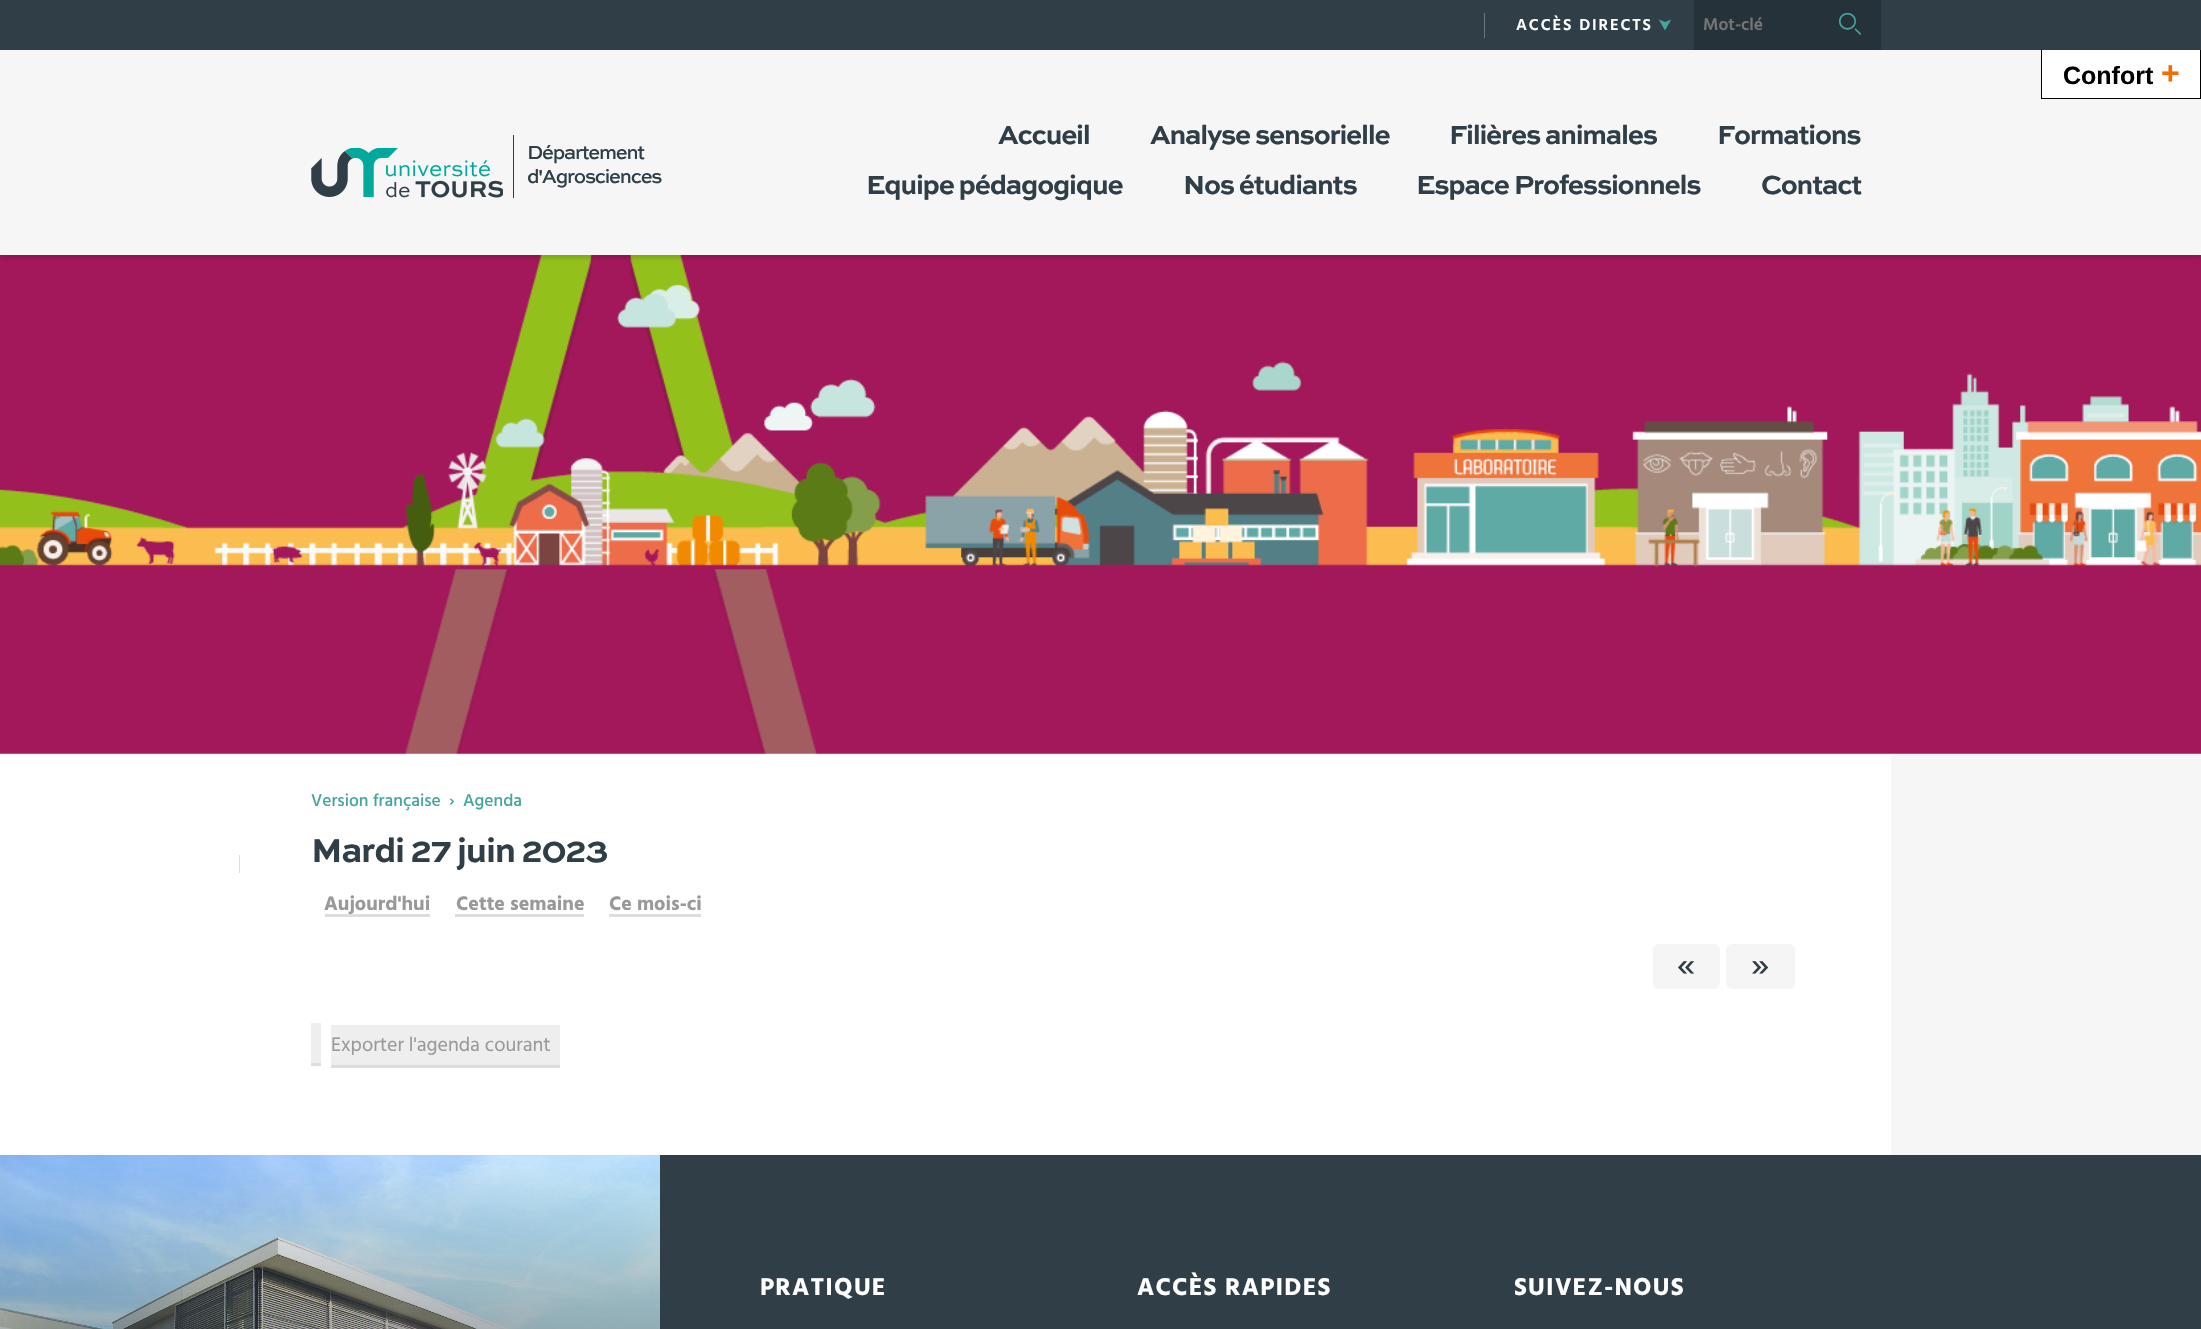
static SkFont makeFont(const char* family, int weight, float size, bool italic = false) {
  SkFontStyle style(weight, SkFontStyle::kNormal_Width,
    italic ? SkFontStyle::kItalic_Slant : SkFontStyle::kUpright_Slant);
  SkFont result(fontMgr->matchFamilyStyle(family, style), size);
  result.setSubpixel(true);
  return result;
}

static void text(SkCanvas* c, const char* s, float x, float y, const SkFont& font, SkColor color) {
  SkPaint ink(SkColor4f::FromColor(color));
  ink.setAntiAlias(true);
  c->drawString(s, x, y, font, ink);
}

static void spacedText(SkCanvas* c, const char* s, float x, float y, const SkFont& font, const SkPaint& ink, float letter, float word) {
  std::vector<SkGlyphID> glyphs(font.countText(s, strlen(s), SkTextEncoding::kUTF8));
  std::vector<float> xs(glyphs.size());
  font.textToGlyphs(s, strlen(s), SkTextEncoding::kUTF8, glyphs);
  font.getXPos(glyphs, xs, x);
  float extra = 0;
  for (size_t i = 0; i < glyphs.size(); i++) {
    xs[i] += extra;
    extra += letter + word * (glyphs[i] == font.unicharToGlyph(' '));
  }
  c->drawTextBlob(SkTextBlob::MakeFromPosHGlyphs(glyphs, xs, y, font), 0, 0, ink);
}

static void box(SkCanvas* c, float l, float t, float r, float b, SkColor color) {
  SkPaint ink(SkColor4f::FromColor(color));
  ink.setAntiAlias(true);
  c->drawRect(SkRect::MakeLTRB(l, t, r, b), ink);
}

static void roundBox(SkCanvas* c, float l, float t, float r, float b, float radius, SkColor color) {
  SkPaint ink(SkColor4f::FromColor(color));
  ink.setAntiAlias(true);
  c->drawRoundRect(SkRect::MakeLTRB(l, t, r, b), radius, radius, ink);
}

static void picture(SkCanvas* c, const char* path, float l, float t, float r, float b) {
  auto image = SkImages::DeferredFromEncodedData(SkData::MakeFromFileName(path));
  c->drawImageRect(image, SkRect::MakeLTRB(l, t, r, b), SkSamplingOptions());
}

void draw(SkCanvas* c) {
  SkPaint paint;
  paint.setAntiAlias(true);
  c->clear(0xff2f3e47);
  box(c, 1484, 13, 1485, 38, 0xff6d787e);
  SkFont face1 = makeFont("Hind", 600, 16.25f);
  paint.setColor(0xffffffff);
  spacedText(c, "ACCÈS DIRECTS", 1516, 30, face1, paint, 1.9f, 0);
  picture(c, "img_01.png", 1659, 19, 1671, 31);
  box(c, 1694, 0, 1881, 50, 0xff263239);
  SkFont face2 = makeFont("Hind", 600, 17.5f);
  text(c, "Mot-clé", 1703, 30, face2, 0xff757575);
  picture(c, "img_02.png", 1839, 12, 1861, 35);
  box(c, 0, 753, 2201, 1155, 0xfff6f6f6);
  picture(c, "img_04.png", 0, 255, 2201, 754);
  paint.setColor(0x26000000);
  paint.setMaskFilter(SkMaskFilter::MakeBlur(kNormal_SkBlurStyle, 2.5f));
  c->drawRect(SkRect::MakeLTRB(0, 53, 2201, 258), paint);
  paint.setMaskFilter(nullptr);
  box(c, 0, 50, 2201, 255, 0xfff6f6f6);
  picture(c, "img_03.png", 311, 148, 503, 198);
  box(c, 513, 135, 514, 198, 0xff2f3e47);
  SkFont face3 = makeFont("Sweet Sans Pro", 500, 20);
  paint.setColor(0xff2f3e47);
  spacedText(c, "Département", 527, 159, face3, paint, -1.25f, 0);
  spacedText(c, "d'Agrosciences", 527, 183, face3, paint, -1.25f, 0);
  SkFont face4 = makeFont("Sweet Sans Pro", 700, 27.5f);
  spacedText(c, "Accueil", 998, 144, face4, paint, -1.25f, 0);
  spacedText(c, "Analyse sensorielle", 1150, 144, face4, paint, -1.25f, 0);
  spacedText(c, "Filières animales", 1449, 144, face4, paint, -1.25f, 0);
  spacedText(c, "Formations", 1717, 144, face4, paint, -1.25f, 0);
  spacedText(c, "Equipe pédagogique", 866, 194, face4, paint, -1.25f, 0);
  spacedText(c, "Nos étudiants", 1183, 194, face4, paint, -1.25f, 0);
  spacedText(c, "Espace Professionnels", 1416, 194, face4, paint, -1.25f, 0);
  spacedText(c, "Contact", 1761, 194, face4, paint, -1.25f, 0);
  box(c, 2042, 50, 2200, 98, 0xffffffff);
  box(c, 2200, 50, 2201, 99, 0xff000000);
  box(c, 2041, 98, 2201, 99, 0xff000000);
  box(c, 2041, 50, 2042, 99, 0xff000000);
  SkFont face5 = makeFont("Liberation Sans", 700, 25);
  text(c, "Confort", 2063, 84, face5, 0xff000000);
  SkFont face6 = makeFont("Liberation Sans", 700, 32);
  text(c, "+", 2161, 84, face6, 0xfff16e00);
  box(c, 0, 755, 1891, 1155, 0xffffffff);
  box(c, 239, 855, 240, 873, 0xffdddddd);
  SkFont face7 = makeFont("Hind", 500, 17.5f);
  text(c, "Version française", 311, 806, face7, 0xff45a59d);
  text(c, "›", 449, 806, face7, 0xff45a59d);
  text(c, "Agenda", 463, 806, face7, 0xff45a59d);
  SkFont face8 = makeFont("Sweet Sans Pro", 700, 35);
  spacedText(c, "Mardi 27 juin 2023", 311, 862, face8, paint, -1.25f, 0);
  SkFont face9 = makeFont("Hind", 700, 20);
  text(c, "Aujourd'hui", 324, 910, face9, 0xff999999);
  box(c, 325, 914, 430, 917, 0xffdddddd);
  text(c, "Cette semaine", 456, 910, face9, 0xff999999);
  box(c, 455, 914, 584, 917, 0xffdddddd);
  text(c, "Ce mois-ci", 609, 910, face9, 0xff999999);
  box(c, 609, 914, 701, 917, 0xffdddddd);
  roundBox(c, 1653, 944, 1720, 989, 6, 0xfff5f5f5);
  SkFont face10 = makeFont("Hind", 400, 38);
  text(c, "«", 1677, 977, face10, 0xff2f3e47);
  roundBox(c, 1726, 944, 1795, 989, 6, 0xfff5f5f5);
  text(c, "»", 1751, 977, face10, 0xff2f3e47);
  box(c, 331, 1025, 560, 1065, 0xffeeeeee);
  SkFont face11 = makeFont("Hind", 400, 20);
  text(c, "Exporter l'agenda courant", 331, 1051, face11, 0xff999999);
  box(c, 311, 1023, 321, 1063, 0xffeeeeee);
  box(c, 311, 1063, 321, 1066, 0xffdddddd);
  box(c, 331, 1065, 560, 1068, 0xffdddddd);
  picture(c, "img_05.png", 0, 1155, 660, 1329);
  SkFont face12 = makeFont("Hind", 700, 25);
  paint.setColor(0xffffffff);
  spacedText(c, "PRATIQUE", 760, 1295, face12, paint, 1.25f, 0);
  spacedText(c, "ACCÈS RAPIDES", 1137, 1295, face12, paint, 1.25f, 0);
  spacedText(c, "SUIVEZ-NOUS", 1514, 1295, face12, paint, 1.25f, 0);
}
